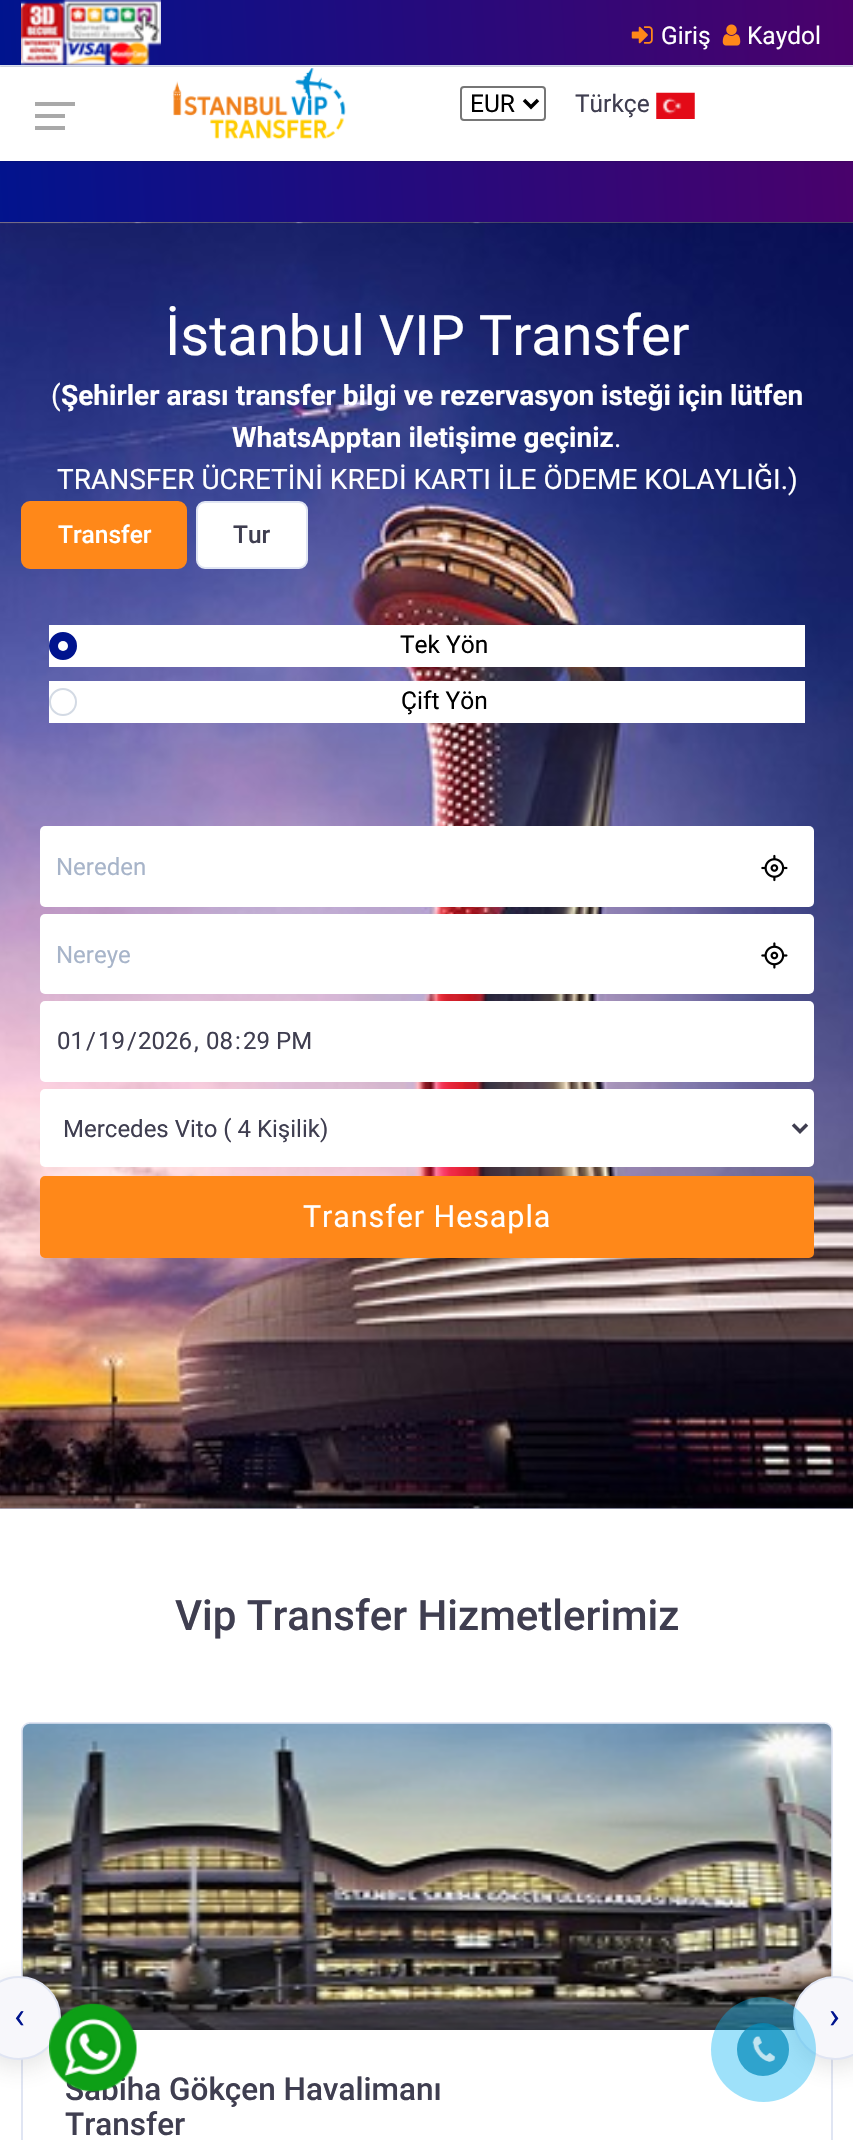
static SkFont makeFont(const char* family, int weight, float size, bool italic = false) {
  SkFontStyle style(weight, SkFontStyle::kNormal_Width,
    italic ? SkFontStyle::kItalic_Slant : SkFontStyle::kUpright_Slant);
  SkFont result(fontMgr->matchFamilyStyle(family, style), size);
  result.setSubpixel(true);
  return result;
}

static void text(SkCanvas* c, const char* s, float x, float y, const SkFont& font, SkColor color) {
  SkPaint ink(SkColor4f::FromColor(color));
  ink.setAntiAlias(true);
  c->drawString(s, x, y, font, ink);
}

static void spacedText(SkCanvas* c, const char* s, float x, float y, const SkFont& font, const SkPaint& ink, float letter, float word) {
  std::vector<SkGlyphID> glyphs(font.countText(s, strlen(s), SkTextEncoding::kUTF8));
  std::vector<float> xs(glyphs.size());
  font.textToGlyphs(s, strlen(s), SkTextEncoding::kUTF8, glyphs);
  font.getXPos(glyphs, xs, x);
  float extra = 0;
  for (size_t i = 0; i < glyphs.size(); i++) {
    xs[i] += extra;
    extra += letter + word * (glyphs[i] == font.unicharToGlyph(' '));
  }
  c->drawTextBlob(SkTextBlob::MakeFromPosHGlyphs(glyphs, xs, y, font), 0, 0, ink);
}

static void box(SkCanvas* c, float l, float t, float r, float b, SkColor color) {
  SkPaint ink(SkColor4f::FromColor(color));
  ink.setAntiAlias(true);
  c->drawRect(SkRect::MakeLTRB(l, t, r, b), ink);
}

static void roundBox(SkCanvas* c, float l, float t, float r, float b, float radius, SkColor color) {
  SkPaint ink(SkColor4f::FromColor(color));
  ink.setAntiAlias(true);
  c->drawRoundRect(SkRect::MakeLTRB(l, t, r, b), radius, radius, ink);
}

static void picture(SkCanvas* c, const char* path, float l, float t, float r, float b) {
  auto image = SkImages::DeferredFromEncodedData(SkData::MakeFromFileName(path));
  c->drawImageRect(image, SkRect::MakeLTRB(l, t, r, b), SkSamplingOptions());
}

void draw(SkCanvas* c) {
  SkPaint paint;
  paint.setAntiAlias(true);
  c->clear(0xfff7f7fb);
  {
    const SkColor colors[] = {0xff00148e, 0xff4b016b};
    const float stops[] = {0, 1};
    const SkPoint ends[] = {{-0.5f, 55}, {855, 10}};
    paint.setShader(SkGradientShader::MakeLinear(ends, colors, stops, 2, SkTileMode::kClamp));
    paint.setAlpha(255);
  }
  c->drawRect(SkRect::MakeLTRB(0, 0, 853, 65), paint);
  box(c, 0, 65, 853, 67, 0xffe0e5f3);
  picture(c, "img_01.png", 21, 0, 161, 65);
  picture(c, "img_02.png", 631, 26, 653, 44);
  SkFont face1 = makeFont("Roboto", 400, 24.5f);
  text(c, "Giriş", 661, 44, face1, 0xffffffff);
  picture(c, "img_03.png", 722, 24, 741, 46);
  text(c, "Kaydol", 747, 44, face1, 0xffffffff);
  {
    const SkColor colors[] = {0xff00148e, 0xff4b016b};
    const float stops[] = {0, 1};
    const SkPoint ends[] = {{-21, 215}, {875, 168}};
    paint.setShader(SkGradientShader::MakeLinear(ends, colors, stops, 2, SkTileMode::kClamp));
    paint.setAlpha(255);
  }
  c->drawRect(SkRect::MakeLTRB(0, 161, 853, 222), paint);
  paint.setShader(nullptr);
  paint.setColor(0x4d000000);
  paint.setMaskFilter(SkMaskFilter::MakeBlur(kNormal_SkBlurStyle, 1));
  c->drawRect(SkRect::MakeLTRB(0, 67, 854, 161), paint);
  paint.setMaskFilter(nullptr);
  box(c, 0, 67, 853, 161, 0xffffffff);
  box(c, 35, 114, 65, 118, 0xffa9a9a9);
  box(c, 35, 102, 75, 106, 0xffa9a9a9);
  box(c, 35, 126, 65, 130, 0xffa9a9a9);
  picture(c, "img_04.png", 172, 68, 346, 139);
  paint.setStyle(SkPaint::kStroke_Style);
  paint.setStrokeWidth(2);
  paint.setColor(0xff767676);
  c->drawRoundRect(SkRect::MakeLTRB(461, 87, 545, 120), 3, 3, paint);
  paint.setStrokeWidth(3.5f);
  paint.setColor(0xff000000);
  c->drawPath(SkPathBuilder().moveTo(524, 100).lineTo(531, 107).lineTo(538, 100).detach(), paint);
  text(c, "EUR", 470, 112, face1, 0xff000000);
  text(c, "Türkçe", 575, 112, face1, 0xff3f3e50);
  picture(c, "img_05.png", 656, 92, 695, 119);
  picture(c, "img_06.png", 0, 222, 853, 1509);
  SkFont face2 = makeFont("Roboto", 400, 56);
  text(c, "İstanbul VIP Transfer", 165, 355, face2, 0xffffffff);
  SkFont face3 = makeFont("Roboto", 400, 28);
  text(c, "(", 51, 405, face3, 0xffffffff);
  SkFont face4 = makeFont("Roboto", 700, 28);
  text(c, "Şehirler arası transfer bilgi ve rezervasyon isteği için lütfen", 61, 405, face4, 0xffffffff);
  text(c, "WhatsApptan iletişime geçiniz", 232, 447, face4, 0xffffffff);
  text(c, ".", 614, 447, face3, 0xffffffff);
  text(c, "TRANSFER ÜCRETİNİ KREDİ KARTI İLE ÖDEME KOLAYLIĞI.)", 57, 489, face3, 0xffffffff);
  paint.setStyle(SkPaint::kFill_Style);
  paint.setColor(0xffff8819);
  c->drawRoundRect(SkRect::MakeLTRB(22, 502, 186, 568), 8, 8, paint);
  paint.setStyle(SkPaint::kStroke_Style);
  paint.setStrokeWidth(2);
  c->drawRoundRect(SkRect::MakeLTRB(22, 502, 186, 568), 8, 8, paint);
  SkFont face5 = makeFont("Roboto", 500, 24.5f);
  text(c, "Transfer", 58, 543, face5, 0xffffffff);
  paint.setStyle(SkPaint::kFill_Style);
  paint.setColor(0xffffffff);
  c->drawRoundRect(SkRect::MakeLTRB(197, 502, 307, 568), 8, 8, paint);
  paint.setStyle(SkPaint::kStroke_Style);
  paint.setColor(0xffe0e5f3);
  c->drawRoundRect(SkRect::MakeLTRB(197, 502, 307, 568), 8, 8, paint);
  text(c, "Tur", 233, 543, face5, 0xff3f3e50);
  box(c, 49, 625, 805, 667, 0xffffffff);
  paint.setStyle(SkPaint::kFill_Style);
  paint.setColor(0xff00148e);
  c->drawCircle(63, 646, 13, paint);
  paint.setStyle(SkPaint::kStroke_Style);
  c->drawCircle(63, 646, 13, paint);
  text(c, "Tek Yön", 400, 653, face1, 0xff000000);
  paint.setStyle(SkPaint::kFill_Style);
  paint.setColor(0xffffffff);
  c->drawCircle(63, 646, 5, paint);
  box(c, 49, 681, 805, 723, 0xffffffff);
  paint.setStyle(SkPaint::kStroke_Style);
  paint.setColor(0xffd3dae4);
  c->drawCircle(63, 702, 13, paint);
  text(c, "Çift Yön", 401, 709, face1, 0xff000000);
  roundBox(c, 40, 826, 814, 907, 5, 0xffffffff);
  SkFont face6 = makeFont("Roboto", 400, 24);
  text(c, "Nereden", 56, 875, face6, 0xffa7b4c9);
  picture(c, "img_07.png", 761, 854, 788, 882);
  roundBox(c, 40, 914, 814, 994, 5, 0xffffffff);
  text(c, "Nereye", 56, 963, face6, 0xffa7b4c9);
  picture(c, "img_08.png", 761, 942, 788, 969);
  roundBox(c, 40, 1001, 814, 1082, 5, 0xffffffff);
  text(c, "01", 57, 1049, face6, 0xff3f3e50);
  text(c, "/", 86, 1049, face6, 0xff3f3e50);
  text(c, "19", 98, 1049, face6, 0xff3f3e50);
  text(c, "/", 127, 1049, face6, 0xff3f3e50);
  text(c, "2026", 138, 1049, face6, 0xff3f3e50);
  text(c, ",", 194, 1049, face6, 0xff3f3e50);
  text(c, "08", 206, 1049, face6, 0xff3f3e50);
  text(c, ":", 235, 1049, face6, 0xff3f3e50);
  text(c, "29", 243, 1049, face6, 0xff3f3e50);
  text(c, "PM", 276, 1049, face6, 0xff3f3e50);
  roundBox(c, 40, 1089, 814, 1167, 5, 0xffffffff);
  paint.setStrokeWidth(3.5f);
  paint.setColor(0xff3f3e50);
  c->drawPath(SkPathBuilder().moveTo(793, 1124.5f).lineTo(800, 1131.5f).lineTo(807, 1124.5f).detach(), paint);
  text(c, "Mercedes Vito ( 4 Kişilik)", 63, 1137, face6, 0xff3f3e50);
  paint.setStyle(SkPaint::kFill_Style);
  paint.setColor(0xffff8819);
  c->drawRoundRect(SkRect::MakeLTRB(41, 1177, 813, 1257), 4, 4, paint);
  paint.setStyle(SkPaint::kStroke_Style);
  paint.setStrokeWidth(2);
  c->drawRoundRect(SkRect::MakeLTRB(41, 1177, 813, 1257), 4, 4, paint);
  SkFont face7 = makeFont("Roboto", 400, 30.5f);
  paint.setStyle(SkPaint::kFill_Style);
  paint.setColor(0xffffffff);
  spacedText(c, "Transfer Hesapla", 303, 1227, face7, paint, 0.9f, 0);
  box(c, 0, 1509, 853, 2140, 0xffffffff);
  SkFont face8 = makeFont("Roboto", 500, 42);
  text(c, "Vip Transfer Hizmetlerimiz", 175, 1630, face8, 0xff3f3e50);
  paint.setStyle(SkPaint::kStroke_Style);
  paint.setColor(0xffe0e5f3);
  c->drawRoundRect(SkRect::MakeLTRB(22, 1723, 832, 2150), 8, 8, paint);
  picture(c, "img_09.png", 22, 1723, 832, 2030);
  paint.setStyle(SkPaint::kFill_Style);
  paint.setColor(0x26434343);
  paint.setMaskFilter(SkMaskFilter::MakeBlur(kNormal_SkBlurStyle, 13));
  c->drawRoundRect(SkRect::MakeLTRB(-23, 1983, 61, 2067), 42, 42, paint);
  paint.setMaskFilter(nullptr);
  paint.setColor(0xfff7f7fb);
  c->drawCircle(19, 2018, 41, paint);
  paint.setStyle(SkPaint::kStroke_Style);
  paint.setColor(0xffe0e5f3);
  c->drawCircle(19, 2018, 41, paint);
  SkFont face9 = makeFont("Roboto", 400, 36);
  text(c, "‹", 14, 2028, face9, 0xff00148e);
  paint.setStyle(SkPaint::kFill_Style);
  paint.setColor(0x26434343);
  paint.setMaskFilter(SkMaskFilter::MakeBlur(kNormal_SkBlurStyle, 13));
  c->drawRoundRect(SkRect::MakeLTRB(793, 1983, 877, 2067), 42, 42, paint);
  paint.setMaskFilter(nullptr);
  paint.setColor(0xfff7f7fb);
  c->drawCircle(835, 2018, 41, paint);
  paint.setStyle(SkPaint::kStroke_Style);
  paint.setColor(0xffe0e5f3);
  c->drawCircle(835, 2018, 41, paint);
  text(c, "›", 829, 2028, face9, 0xff00148e);
  SkFont face10 = makeFont("Roboto", 500, 31.5f);
  text(c, "Sabiha Gökçen Havalimanı", 65, 2100, face10, 0xff3f3e50);
  text(c, "Transfer", 65, 2135, face10, 0xff3f3e50);
  picture(c, "img_10.png", 49, 2003, 137, 2092);
  paint.setStyle(SkPaint::kFill_Style);
  paint.setColor(0x6100aff2);
  c->drawCircle(763.5f, 2049.5f, 52.5f, paint);
  roundBox(c, 737, 2023, 789, 2076, 26, 0xb30089b9);
  picture(c, "img_11.png", 752, 2036, 776, 2062);
}
